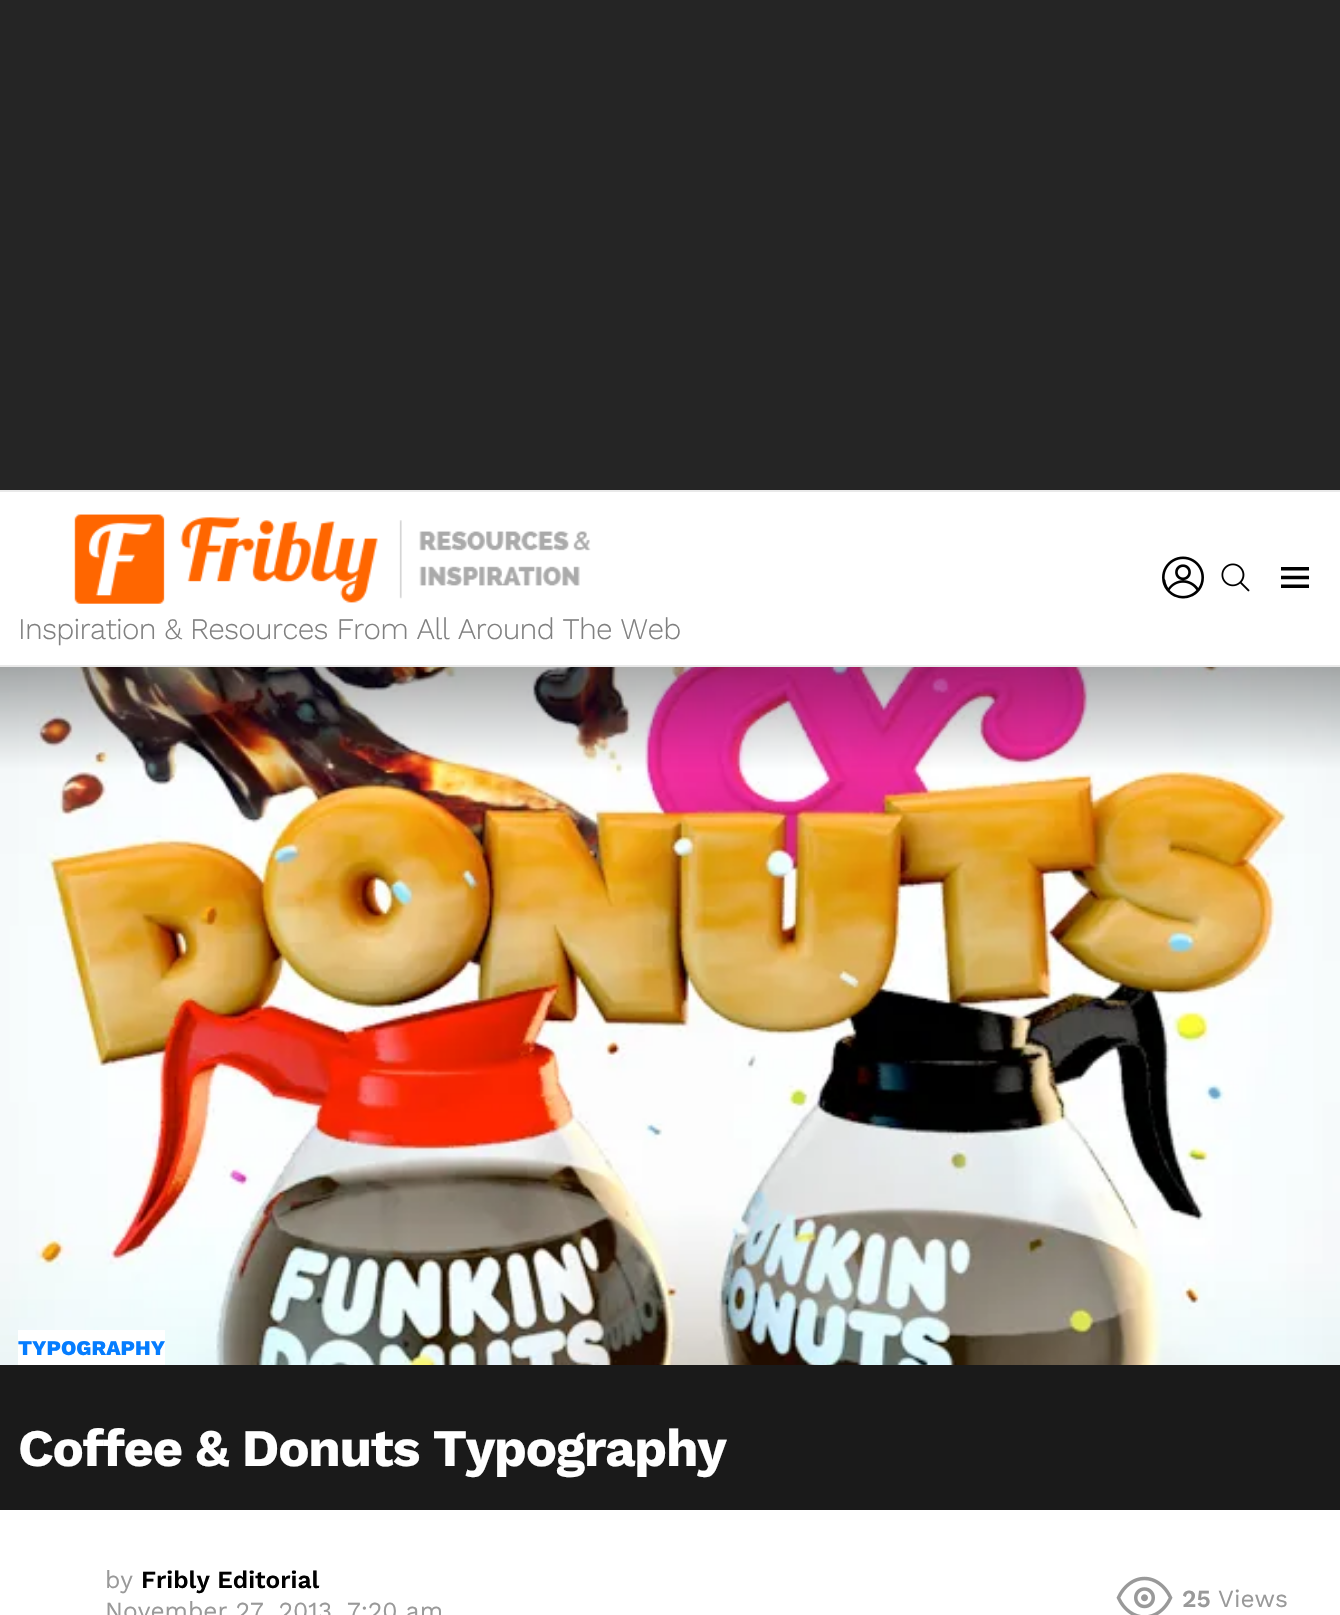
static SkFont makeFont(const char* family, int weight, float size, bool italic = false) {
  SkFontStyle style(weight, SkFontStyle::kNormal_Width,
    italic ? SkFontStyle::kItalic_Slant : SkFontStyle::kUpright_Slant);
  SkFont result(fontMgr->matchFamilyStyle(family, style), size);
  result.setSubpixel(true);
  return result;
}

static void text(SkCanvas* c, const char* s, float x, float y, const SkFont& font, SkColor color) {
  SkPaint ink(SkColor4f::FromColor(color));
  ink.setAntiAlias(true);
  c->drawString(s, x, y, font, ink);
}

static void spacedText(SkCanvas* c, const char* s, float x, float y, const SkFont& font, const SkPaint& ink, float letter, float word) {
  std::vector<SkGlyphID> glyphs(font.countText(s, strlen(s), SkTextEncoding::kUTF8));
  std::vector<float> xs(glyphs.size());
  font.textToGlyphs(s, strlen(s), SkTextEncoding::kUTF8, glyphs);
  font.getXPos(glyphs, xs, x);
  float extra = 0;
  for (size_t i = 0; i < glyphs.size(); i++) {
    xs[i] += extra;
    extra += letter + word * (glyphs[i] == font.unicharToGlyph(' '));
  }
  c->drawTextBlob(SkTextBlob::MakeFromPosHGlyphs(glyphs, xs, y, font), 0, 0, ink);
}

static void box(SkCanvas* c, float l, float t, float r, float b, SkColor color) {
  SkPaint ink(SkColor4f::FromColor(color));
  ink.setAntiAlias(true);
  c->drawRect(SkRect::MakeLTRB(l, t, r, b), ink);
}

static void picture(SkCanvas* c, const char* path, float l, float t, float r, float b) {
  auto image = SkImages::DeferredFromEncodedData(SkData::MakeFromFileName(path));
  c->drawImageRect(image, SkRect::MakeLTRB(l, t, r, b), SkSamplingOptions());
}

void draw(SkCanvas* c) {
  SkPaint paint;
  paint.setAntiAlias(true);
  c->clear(0xffffffff);
  box(c, 0, 0, 1340, 490, 0xff252525);
  box(c, 0, 490, 1340, 492, 0xffe9e9e9);
  picture(c, "img_01.png", 1162, 556, 1204, 599);
  picture(c, "img_02.png", 1221, 563, 1250, 592);
  picture(c, "img_03.png", 1281, 567, 1309, 588);
  picture(c, "img_04.png", 74, 514, 591, 604);
  SkFont face1 = makeFont("Work Sans", 300, 29.75f);
  paint.setColor(0xff808080);
  spacedText(c, "Inspiration & Resources From All Around The Web", 18, 639, face1, paint, -0.75f, 0);
  box(c, 0, 665, 1340, 667, 0xffe9e9e9);
  picture(c, "img_05.png", 0, 667, 1340, 1365);
  box(c, 0, 1365, 1340, 1510, 0xff1a1a1a);
  box(c, 18, 1330, 165, 1365, 0xffffffff);
  SkFont face2 = makeFont("Work Sans", 800, 21);
  text(c, "TYPOGRAPHY", 18, 1355, face2, 0xff057dff);
  SkFont face3 = makeFont("Work Sans", 700, 52.5f);
  paint.setColor(0xffffffff);
  spacedText(c, "Coffee & Donuts Typography", 18, 1466, face3, paint, -1.3f, 0);
  SkFont face4 = makeFont("Work Sans", 400, 24.5f);
  text(c, "by", 105, 1588, face4, 0xff999999);
  SkFont face5 = makeFont("Work Sans", 600, 24.5f);
  text(c, "Fribly Editorial", 141, 1588, face5, 0xff000000);
  text(c, "November 27, 2013, 7:20 am", 105, 1619, face4, 0xff999999);
  picture(c, "img_06.png", 1116, 1576, 1173, 1615);
  text(c, "25", 1182, 1607, face5, 0xff999999);
  text(c, "Views", 1218, 1607, face4, 0xff999999);
}
